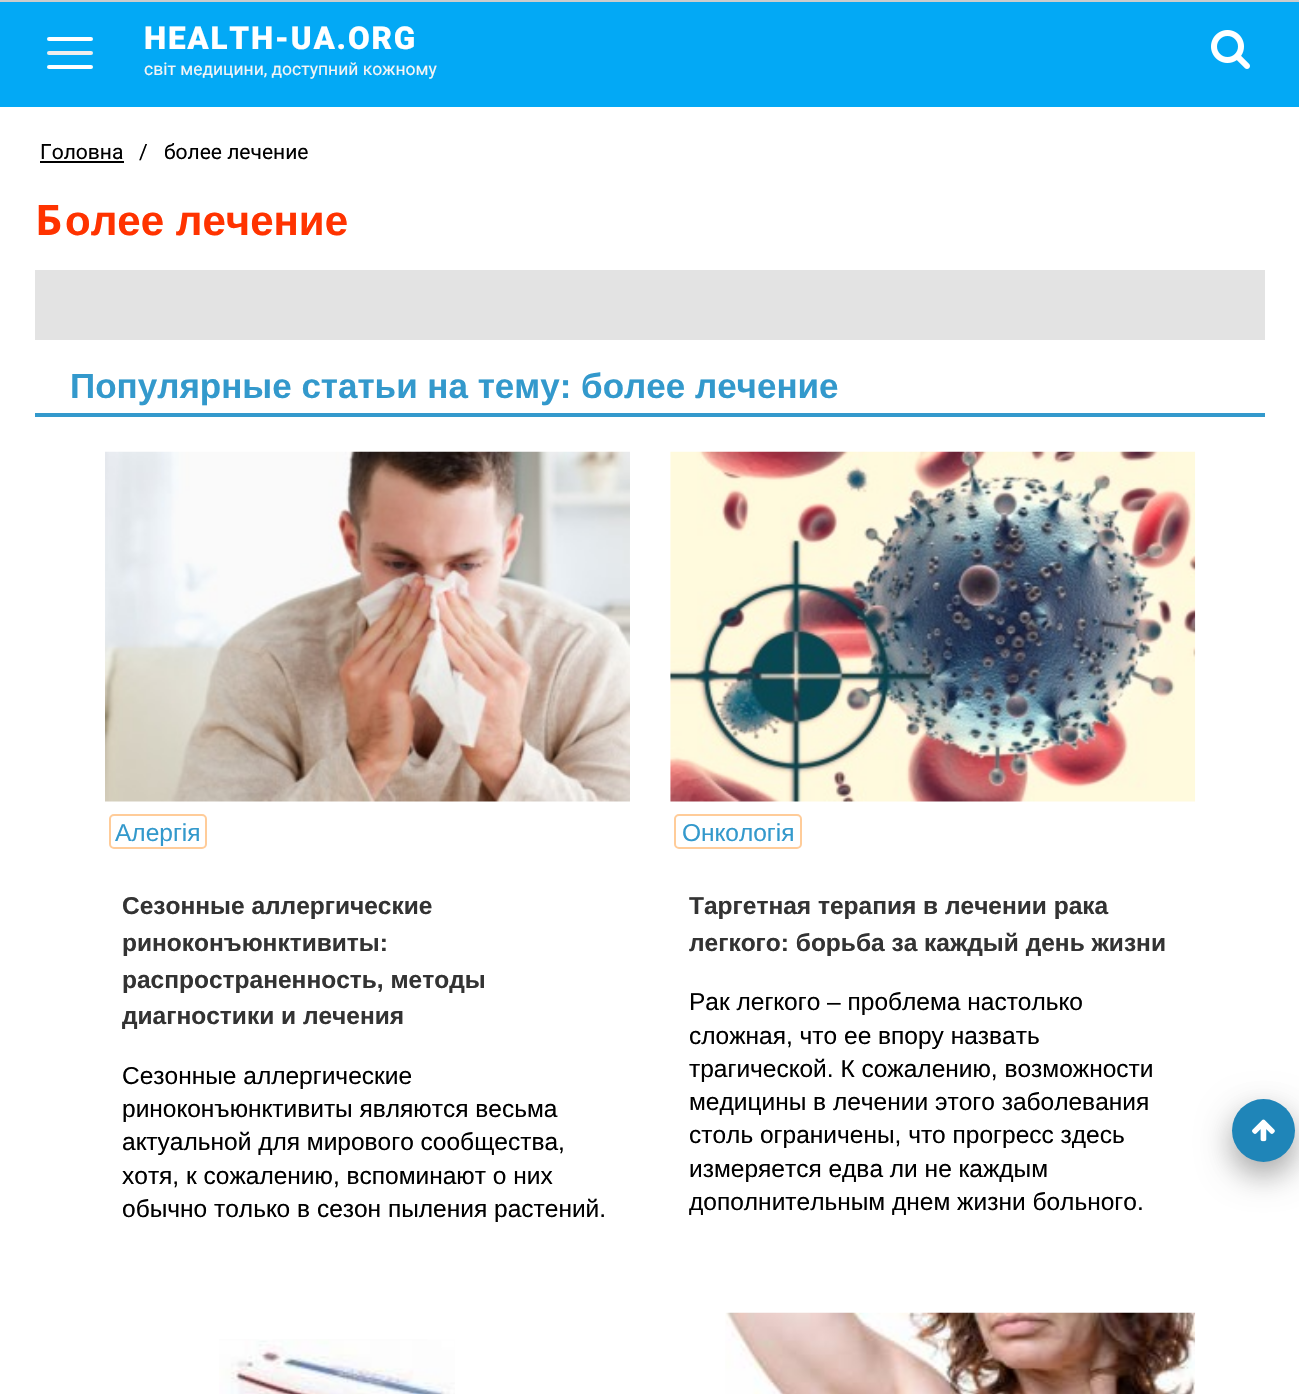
static SkFont makeFont(const char* family, int weight, float size, bool italic = false) {
  SkFontStyle style(weight, SkFontStyle::kNormal_Width,
    italic ? SkFontStyle::kItalic_Slant : SkFontStyle::kUpright_Slant);
  SkFont result(fontMgr->matchFamilyStyle(family, style), size);
  result.setSubpixel(true);
  return result;
}

static void text(SkCanvas* c, const char* s, float x, float y, const SkFont& font, SkColor color) {
  SkPaint ink(SkColor4f::FromColor(color));
  ink.setAntiAlias(true);
  c->drawString(s, x, y, font, ink);
}

static void spacedText(SkCanvas* c, const char* s, float x, float y, const SkFont& font, const SkPaint& ink, float letter, float word) {
  std::vector<SkGlyphID> glyphs(font.countText(s, strlen(s), SkTextEncoding::kUTF8));
  std::vector<float> xs(glyphs.size());
  font.textToGlyphs(s, strlen(s), SkTextEncoding::kUTF8, glyphs);
  font.getXPos(glyphs, xs, x);
  float extra = 0;
  for (size_t i = 0; i < glyphs.size(); i++) {
    xs[i] += extra;
    extra += letter + word * (glyphs[i] == font.unicharToGlyph(' '));
  }
  c->drawTextBlob(SkTextBlob::MakeFromPosHGlyphs(glyphs, xs, y, font), 0, 0, ink);
}

static void box(SkCanvas* c, float l, float t, float r, float b, SkColor color) {
  SkPaint ink(SkColor4f::FromColor(color));
  ink.setAntiAlias(true);
  c->drawRect(SkRect::MakeLTRB(l, t, r, b), ink);
}

static void roundBox(SkCanvas* c, float l, float t, float r, float b, float radius, SkColor color) {
  SkPaint ink(SkColor4f::FromColor(color));
  ink.setAntiAlias(true);
  c->drawRoundRect(SkRect::MakeLTRB(l, t, r, b), radius, radius, ink);
}

static void picture(SkCanvas* c, const char* path, float l, float t, float r, float b) {
  auto image = SkImages::DeferredFromEncodedData(SkData::MakeFromFileName(path));
  c->drawImageRect(image, SkRect::MakeLTRB(l, t, r, b), SkSamplingOptions());
}

void draw(SkCanvas* c) {
  SkPaint paint;
  paint.setAntiAlias(true);
  c->clear(0xffffffff);
  box(c, 0, 0, 1299, 2, 0xffcccccc);
  box(c, 0, 2, 1299, 107, 0xff03a9f5);
  roundBox(c, 47, 51, 93, 55, 2, 0xffededed);
  roundBox(c, 47, 37, 93, 41, 2, 0xffffffff);
  roundBox(c, 47, 65, 93, 69, 2, 0xffffffff);
  SkFont face1 = makeFont("Roboto", 900, 31.5f);
  paint.setColor(0xffffffff);
  spacedText(c, "HEALTH-UA.ORG", 144, 49, face1, paint, 1.75f, 0);
  SkFont face2 = makeFont("Roboto", 400, 17.5f);
  text(c, "світ медицини, доступний кожному", 144, 75, face2, 0xfff5f5f5);
  picture(c, "img_01.png", 1211, 30, 1250, 69);
  SkFont face3 = makeFont("Roboto", 400, 21);
  text(c, "Головна", 40, 159, face3, 0xff000000);
  box(c, 40, 161, 124, 163, 0xff000000);
  text(c, "/", 139, 159, face3, 0xff000000);
  text(c, "более лечение", 164, 159, face3, 0xff000000);
  SkFont face4 = makeFont("Noto Sans", 700, 42);
  text(c, "Б", 35, 235, face4, 0xffff3300);
  SkFont face5 = makeFont("Liberation Sans", 700, 42);
  text(c, "олее лечение", 65, 235, face5, 0xffff3300);
  box(c, 35, 270, 1265, 340, 0xffe3e3e3);
  box(c, 35, 413, 1265, 417, 0xff3399cc);
  SkFont face6 = makeFont("Liberation Sans", 700, 35);
  text(c, "Популярные статьи на тему: более лечение", 70, 398, face6, 0xff3399cc);
  picture(c, "img_02.png", 105, 451, 630, 802);
  paint.setStyle(SkPaint::kStroke_Style);
  paint.setStrokeWidth(2);
  paint.setColor(0xffffcc99);
  c->drawRoundRect(SkRect::MakeLTRB(110, 815, 206, 848), 4, 4, paint);
  SkFont face7 = makeFont("Liberation Sans", 400, 24.5f);
  text(c, "Алергія", 115, 841, face7, 0xff3399cc);
  SkFont face8 = makeFont("Liberation Sans", 700, 24.5f);
  text(c, "Сезонные аллергические", 122, 914, face8, 0xff333333);
  text(c, "риноконъюнктивиты:", 122, 951, face8, 0xff333333);
  text(c, "распространенность, методы", 122, 988, face8, 0xff333333);
  text(c, "диагностики и лечения", 122, 1024, face8, 0xff333333);
  text(c, "Сезонные аллергические", 122, 1084, face7, 0xff000000);
  text(c, "риноконъюнктивиты являются весьма", 122, 1117, face7, 0xff000000);
  text(c, "актуальной для мирового сообщества,", 122, 1150, face7, 0xff000000);
  text(c, "хотя, к сожалению, вспоминают о них", 122, 1184, face7, 0xff000000);
  text(c, "обычно только в сезон пыления растений.", 122, 1217, face7, 0xff000000);
  picture(c, "img_03.png", 670, 451, 1196, 802);
  c->drawRoundRect(SkRect::MakeLTRB(675, 815, 801, 848), 4, 4, paint);
  text(c, "Онкологія", 682, 841, face7, 0xff3399cc);
  text(c, "Таргетная терапия в лечении рака", 689, 914, face8, 0xff333333);
  text(c, "легкого: борьба за каждый день жизни", 689, 951, face8, 0xff333333);
  text(c, "Рак легкого – проблема настолько", 689, 1010, face7, 0xff000000);
  text(c, "сложная, что ее впору назвать", 689, 1044, face7, 0xff000000);
  text(c, "трагической. К сожалению, возможности", 689, 1077, face7, 0xff000000);
  text(c, "медицины в лечении этого заболевания", 689, 1110, face7, 0xff000000);
  text(c, "столь ограничены, что прогресс здесь", 689, 1143, face7, 0xff000000);
  text(c, "измеряется едва ли не каждым", 689, 1177, face7, 0xff000000);
  text(c, "дополнительным днем жизни больного.", 689, 1210, face7, 0xff000000);
  picture(c, "img_04.png", 219, 1339, 455, 1394);
  picture(c, "img_05.png", 725, 1312, 1196, 1394);
  paint.setStyle(SkPaint::kFill_Style);
  paint.setColor(0x30000000);
  paint.setMaskFilter(SkMaskFilter::MakeBlur(kNormal_SkBlurStyle, 17.5f));
  c->drawRoundRect(SkRect::MakeLTRB(1232, 1110, 1295, 1173), 31.5f, 31.5f, paint);
  paint.setMaskFilter(nullptr);
  paint.setColor(0x33000000);
  paint.setMaskFilter(SkMaskFilter::MakeBlur(kNormal_SkBlurStyle, 14));
  c->drawRoundRect(SkRect::MakeLTRB(1232, 1113, 1295, 1176), 31.5f, 31.5f, paint);
  paint.setMaskFilter(nullptr);
  paint.setColor(0xff1f85b8);
  c->drawCircle(1263.5f, 1130.5f, 31.5f, paint);
  picture(c, "img_06.png", 1252, 1119, 1275, 1142);
}
